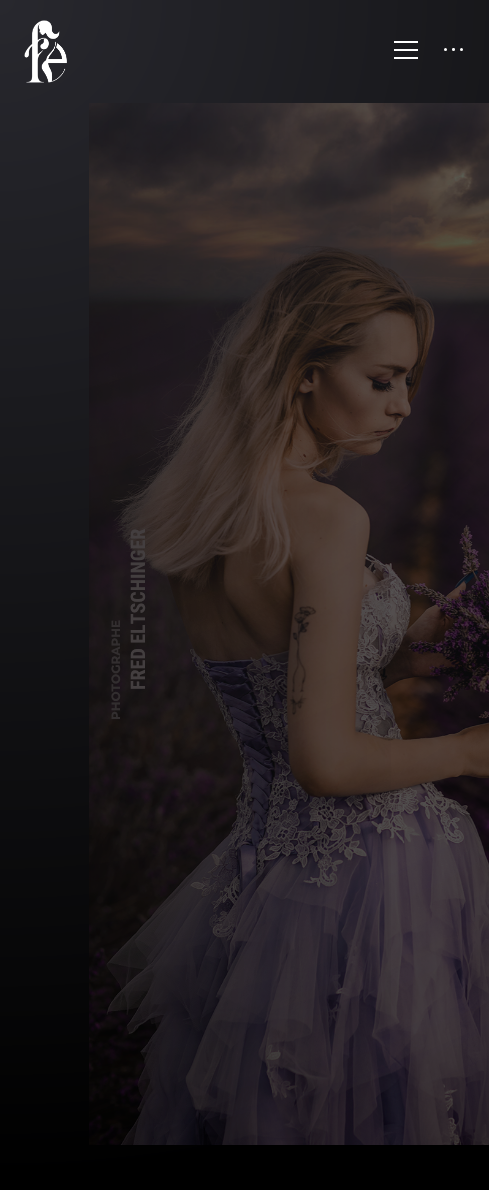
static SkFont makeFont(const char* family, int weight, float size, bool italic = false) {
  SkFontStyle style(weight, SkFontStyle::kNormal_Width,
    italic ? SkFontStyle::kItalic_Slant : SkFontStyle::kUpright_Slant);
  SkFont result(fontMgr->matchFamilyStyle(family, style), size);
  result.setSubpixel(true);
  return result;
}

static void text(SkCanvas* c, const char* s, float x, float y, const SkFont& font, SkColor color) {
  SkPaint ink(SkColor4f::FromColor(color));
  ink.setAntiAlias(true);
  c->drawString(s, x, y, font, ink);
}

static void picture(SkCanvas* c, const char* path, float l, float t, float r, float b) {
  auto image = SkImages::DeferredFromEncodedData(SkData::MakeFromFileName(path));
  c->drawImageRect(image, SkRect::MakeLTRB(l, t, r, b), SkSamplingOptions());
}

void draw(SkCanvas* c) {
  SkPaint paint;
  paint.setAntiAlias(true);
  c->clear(0xffffffff);
  {
    const SkColor colors[] = {0xff28282e, 0xff000000};
    const float stops[] = {0, 0.7f};
    paint.setShader(SkGradientShader::MakeRadial({0, 0}, 1683, colors, stops, 2, SkTileMode::kClamp));
    paint.setAlpha(255);
  }
  c->drawRect(SkRect::MakeLTRB(0, 0, 489, 1190), paint);
  picture(c, "img_01.png", 24, 20, 67, 83);
  picture(c, "img_02.png", 394, 41, 418, 59);
  paint.setShader(nullptr);
  paint.setColor(0xffffffff);
  c->drawCircle(445.5f, 49.5f, 1.5f, paint);
  c->drawCircle(453.5f, 49.5f, 1.5f, paint);
  c->drawPath(SkPathBuilder().moveTo(452, 49).lineTo(453.5f, 48).lineTo(455, 49).lineTo(453.5f, 50.5f).close().detach(), paint);
  c->drawCircle(461.5f, 49.5f, 1.5f, paint);
  picture(c, "img_03.png", 89, 103, 489, 1145);
  {
    const SkColor colors[] = {0x00000000, 0x3b000000};
    const float stops[] = {0, 1};
    const SkPoint ends[] = {{435, 624}, {88, 624}};
    paint.setShader(SkGradientShader::MakeLinear(ends, colors, stops, 2, SkTileMode::kClamp));
    paint.setAlpha(255);
  }
  c->drawRect(SkRect::MakeLTRB(89, 103, 391, 1145), paint);
  SkFont face1 = makeFont("Montserrat", 100, 12);
  c->save();
  c->rotate(-90, 120, 720);
  text(c, "PHOTOGRAPHE", 120, 720, face1, 0xff322e2f);
  c->restore();
  SkFont face2 = makeFont("Roboto Condensed", 700, 20);
  c->save();
  c->rotate(-90, 145, 690);
  text(c, "FRED ELTSCHINGER", 145, 690, face2, 0xff433e3f);
  c->restore();
}
